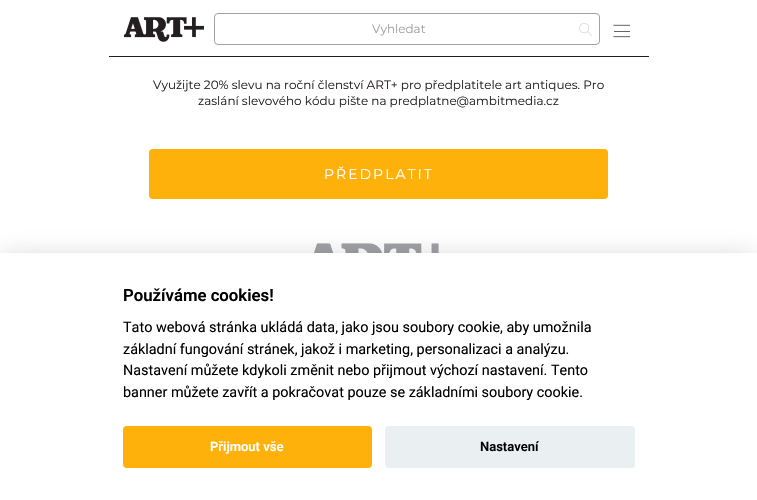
static SkFont makeFont(const char* family, int weight, float size, bool italic = false) {
  SkFontStyle style(weight, SkFontStyle::kNormal_Width,
    italic ? SkFontStyle::kItalic_Slant : SkFontStyle::kUpright_Slant);
  SkFont result(fontMgr->matchFamilyStyle(family, style), size);
  result.setSubpixel(true);
  return result;
}

static void text(SkCanvas* c, const char* s, float x, float y, const SkFont& font, SkColor color) {
  SkPaint ink(SkColor4f::FromColor(color));
  ink.setAntiAlias(true);
  c->drawString(s, x, y, font, ink);
}

static void spacedText(SkCanvas* c, const char* s, float x, float y, const SkFont& font, const SkPaint& ink, float letter, float word) {
  std::vector<SkGlyphID> glyphs(font.countText(s, strlen(s), SkTextEncoding::kUTF8));
  std::vector<float> xs(glyphs.size());
  font.textToGlyphs(s, strlen(s), SkTextEncoding::kUTF8, glyphs);
  font.getXPos(glyphs, xs, x);
  float extra = 0;
  for (size_t i = 0; i < glyphs.size(); i++) {
    xs[i] += extra;
    extra += letter + word * (glyphs[i] == font.unicharToGlyph(' '));
  }
  c->drawTextBlob(SkTextBlob::MakeFromPosHGlyphs(glyphs, xs, y, font), 0, 0, ink);
}

static void box(SkCanvas* c, float l, float t, float r, float b, SkColor color) {
  SkPaint ink(SkColor4f::FromColor(color));
  ink.setAntiAlias(true);
  c->drawRect(SkRect::MakeLTRB(l, t, r, b), ink);
}

static void roundBox(SkCanvas* c, float l, float t, float r, float b, float radius, SkColor color) {
  SkPaint ink(SkColor4f::FromColor(color));
  ink.setAntiAlias(true);
  c->drawRoundRect(SkRect::MakeLTRB(l, t, r, b), radius, radius, ink);
}

static void picture(SkCanvas* c, const char* path, float l, float t, float r, float b) {
  auto image = SkImages::DeferredFromEncodedData(SkData::MakeFromFileName(path));
  c->drawImageRect(image, SkRect::MakeLTRB(l, t, r, b), SkSamplingOptions());
}

void draw(SkCanvas* c) {
  SkPaint paint;
  paint.setAntiAlias(true);
  c->clear(0xffffffff);
  box(c, 109, 56, 649, 57, 0xff231f20);
  picture(c, "img_01.png", 124, 17, 204, 42);
  paint.setStyle(SkPaint::kStroke_Style);
  paint.setStrokeWidth(1);
  paint.setColor(0xff9fa1a4);
  c->drawRoundRect(SkRect::MakeLTRB(214.5f, 13.5f, 599.5f, 44.5f), 3.5f, 3.5f, paint);
  SkFont face1 = makeFont("Montserrat", 400, 12);
  text(c, "Vyhledat", 372, 33, face1, 0xff9fa1a4);
  picture(c, "img_02.png", 579, 23, 592, 36);
  picture(c, "img_03.png", 613, 24, 631, 38);
  text(c, "Využijte 20% slevu na roční členství ART+ pro předplatitele art antiques. Pro", 153, 89, face1, 0xff231f20);
  text(c, "zaslání slevového kódu pište na predplatne@ambitmedia.cz", 198, 105, face1, 0xff231f20);
  roundBox(c, 149, 149, 608, 199, 4, 0xfffeb00b);
  SkFont face2 = makeFont("Montserrat", 400, 14);
  paint.setStyle(SkPaint::kFill_Style);
  paint.setColor(0xffffffff);
  spacedText(c, "PŘEDPLATIT", 324, 179, face2, paint, 2, 0);
  picture(c, "img_04.png", 314, 243, 439, 253);
  paint.setColor(0x47020203);
  paint.setMaskFilter(SkMaskFilter::MakeBlur(kNormal_SkBlurStyle, 15));
  c->drawRect(SkRect::MakeLTRB(0, 263, 757, 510), paint);
  paint.setMaskFilter(nullptr);
  box(c, 0, 253, 757, 500, 0xffffffff);
  SkFont face3 = makeFont("Roboto", 600, 16.75f);
  text(c, "Používáme cookies!", 123, 301, face3, 0xff000000);
  SkFont face4 = makeFont("Roboto", 400, 14.4f);
  text(c, "Tato webová stránka ukládá data, jako jsou soubory cookie, aby umožnila", 123, 332, face4, 0xff000000);
  text(c, "základní fungování stránek, jakož i marketing, personalizaci a analýzu.", 123, 354, face4, 0xff000000);
  text(c, "Nastavení můžete kdykoli změnit nebo přijmout výchozí nastavení. Tento", 123, 375, face4, 0xff000000);
  text(c, "banner můžete zavřít a pokračovat pouze se základními soubory cookie.", 123, 397, face4, 0xff000000);
  roundBox(c, 123, 426, 372, 468, 4, 0xfffeb00b);
  SkFont face5 = makeFont("Roboto", 600, 13);
  text(c, "Přijmout vše", 210, 451, face5, 0xffffffff);
  roundBox(c, 385, 426, 635, 468, 4, 0xffeaeff2);
  text(c, "Nastavení", 480, 451, face5, 0xff000000);
}
